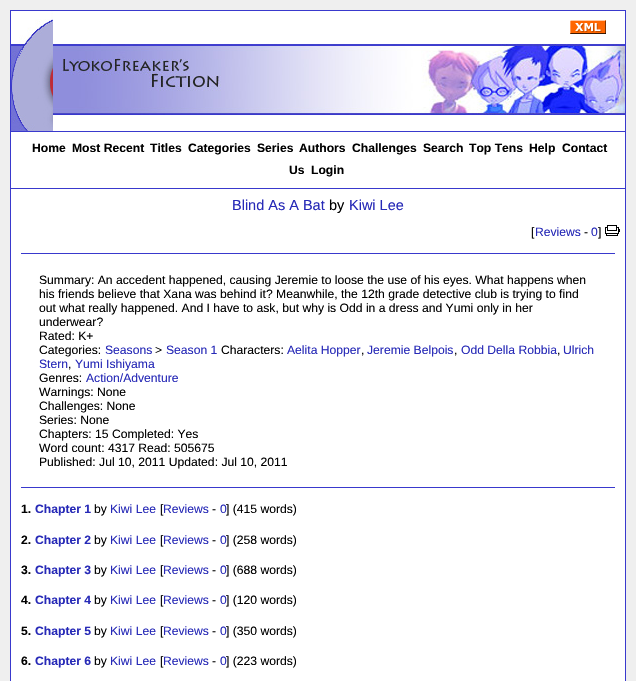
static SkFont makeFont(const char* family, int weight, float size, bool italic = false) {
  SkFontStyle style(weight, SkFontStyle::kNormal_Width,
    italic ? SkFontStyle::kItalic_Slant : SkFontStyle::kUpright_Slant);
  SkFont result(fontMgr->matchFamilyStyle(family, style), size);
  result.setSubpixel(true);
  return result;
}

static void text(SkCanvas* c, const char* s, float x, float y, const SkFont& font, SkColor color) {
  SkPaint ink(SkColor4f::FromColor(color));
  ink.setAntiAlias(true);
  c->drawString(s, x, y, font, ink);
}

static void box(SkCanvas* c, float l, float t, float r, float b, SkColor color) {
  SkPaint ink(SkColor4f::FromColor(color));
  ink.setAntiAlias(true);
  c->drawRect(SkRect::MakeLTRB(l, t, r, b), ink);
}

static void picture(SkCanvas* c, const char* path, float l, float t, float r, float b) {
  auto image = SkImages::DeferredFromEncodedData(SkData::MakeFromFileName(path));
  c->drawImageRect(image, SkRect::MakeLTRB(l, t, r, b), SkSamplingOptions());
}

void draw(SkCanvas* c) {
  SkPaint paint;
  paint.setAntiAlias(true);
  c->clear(0xffefefef);
  box(c, 11, 132, 625, 188, 0xffffffff);
  box(c, 10, 10, 626, 11, 0xff3939cd);
  box(c, 625, 10, 626, 188, 0xff3939cd);
  box(c, 10, 10, 11, 188, 0xff3939cd);
  picture(c, "img_01.png", 11, 11, 53, 131);
  picture(c, "img_02.png", 53, 11, 625, 131);
  picture(c, "img_03.png", 570, 20, 606, 34);
  box(c, 11, 131, 625, 132, 0xff3939cd);
  SkFont face1 = makeFont("Liberation Sans", 700, 12.15f);
  text(c, "Home", 32, 152, face1, 0xff000000);
  text(c, "Most Recent", 72, 152, face1, 0xff000000);
  text(c, "Titles", 150, 152, face1, 0xff000000);
  text(c, "Categories", 188, 152, face1, 0xff000000);
  text(c, "Series", 257, 152, face1, 0xff000000);
  text(c, "Authors", 299, 152, face1, 0xff000000);
  text(c, "Challenges", 352, 152, face1, 0xff000000);
  text(c, "Search", 423, 152, face1, 0xff000000);
  text(c, "Top Tens", 469, 152, face1, 0xff000000);
  text(c, "Help", 529, 152, face1, 0xff000000);
  text(c, "Contact", 562, 152, face1, 0xff000000);
  text(c, "Us", 289, 174, face1, 0xff000000);
  text(c, "Login", 311, 174, face1, 0xff000000);
  box(c, 11, 189, 625, 681, 0xffffffff);
  box(c, 10, 188, 626, 189, 0xff3939cd);
  box(c, 625, 188, 626, 681, 0xff3939cd);
  box(c, 10, 188, 11, 681, 0xff3939cd);
  SkFont face2 = makeFont("Liberation Sans", 400, 14.5f);
  text(c, "Blind As A Bat", 232, 210, face2, 0xff272ab7);
  text(c, "by", 329, 210, face2, 0xff000000);
  text(c, "Kiwi Lee", 349, 210, face2, 0xff272ab7);
  SkFont face3 = makeFont("Liberation Sans", 400, 12.15f);
  text(c, "[", 531, 236, face3, 0xff000000);
  text(c, "Reviews", 535, 236, face3, 0xff272ab7);
  text(c, "-", 584, 236, face3, 0xff000000);
  text(c, "0", 591, 236, face3, 0xff272ab7);
  text(c, "]", 598, 236, face3, 0xff000000);
  picture(c, "img_04.png", 605, 225, 620, 236);
  box(c, 21, 253, 615, 254, 0xff3939cd);
  box(c, 21, 487, 615, 488, 0xff3939cd);
  text(c, "Summary: An accedent happened, causing Jeremie to loose the use of his eyes. What happens when", 39, 284, face3, 0xff000000);
  text(c, "his friends believe that Xana was behind it? Meanwhile, the 12th grade detective club is trying to find", 39, 298, face3, 0xff000000);
  text(c, "out what really happened. And I have to ask, but why is Odd in a dress and Yumi only in her", 39, 312, face3, 0xff000000);
  text(c, "underwear?", 39, 326, face3, 0xff000000);
  text(c, "Rated: K+", 39, 340, face3, 0xff000000);
  text(c, "Categories:", 39, 354, face3, 0xff000000);
  text(c, "Seasons", 105, 354, face3, 0xff272ab7);
  text(c, ">", 155, 354, face3, 0xff000000);
  text(c, "Season 1", 166, 354, face3, 0xff272ab7);
  text(c, "Characters:", 221, 354, face3, 0xff000000);
  text(c, "Aelita Hopper", 287, 354, face3, 0xff272ab7);
  text(c, ",", 361, 354, face3, 0xff000000);
  text(c, "Jeremie Belpois", 367, 354, face3, 0xff272ab7);
  text(c, ",", 454, 354, face3, 0xff000000);
  text(c, "Odd Della Robbia", 461, 354, face3, 0xff272ab7);
  text(c, ",", 557, 354, face3, 0xff000000);
  text(c, "Ulrich", 563, 354, face3, 0xff272ab7);
  text(c, "Stern", 39, 368, face3, 0xff272ab7);
  text(c, ",", 68, 368, face3, 0xff000000);
  text(c, "Yumi Ishiyama", 75, 368, face3, 0xff272ab7);
  text(c, "Genres:", 39, 382, face3, 0xff000000);
  text(c, "Action/Adventure", 86, 382, face3, 0xff272ab7);
  text(c, "Warnings: None", 39, 396, face3, 0xff000000);
  text(c, "Challenges: None", 39, 410, face3, 0xff000000);
  text(c, "Series: None", 39, 424, face3, 0xff000000);
  text(c, "Chapters: 15 Completed: Yes", 39, 438, face3, 0xff000000);
  text(c, "Word count: 4317 Read: 505675", 39, 452, face3, 0xff000000);
  text(c, "Published: Jul 10, 2011 Updated: Jul 10, 2011", 39, 466, face3, 0xff000000);
  text(c, "1.", 21, 513, face1, 0xff000000);
  text(c, "Chapter 1", 35, 513, face1, 0xff272ab7);
  text(c, "by", 94, 513, face3, 0xff000000);
  text(c, "Kiwi Lee", 110, 513, face3, 0xff272ab7);
  text(c, "[", 160, 513, face3, 0xff000000);
  text(c, "Reviews", 163, 513, face3, 0xff272ab7);
  text(c, "-", 212, 513, face3, 0xff000000);
  text(c, "0", 220, 513, face3, 0xff272ab7);
  text(c, "] (415 words)", 226, 513, face3, 0xff000000);
  text(c, "2.", 21, 544, face1, 0xff000000);
  text(c, "Chapter 2", 35, 544, face1, 0xff272ab7);
  text(c, "by", 94, 544, face3, 0xff000000);
  text(c, "Kiwi Lee", 110, 544, face3, 0xff272ab7);
  text(c, "[", 160, 544, face3, 0xff000000);
  text(c, "Reviews", 163, 544, face3, 0xff272ab7);
  text(c, "-", 212, 544, face3, 0xff000000);
  text(c, "0", 220, 544, face3, 0xff272ab7);
  text(c, "] (258 words)", 226, 544, face3, 0xff000000);
  text(c, "3.", 21, 574, face1, 0xff000000);
  text(c, "Chapter 3", 35, 574, face1, 0xff272ab7);
  text(c, "by", 94, 574, face3, 0xff000000);
  text(c, "Kiwi Lee", 110, 574, face3, 0xff272ab7);
  text(c, "[", 160, 574, face3, 0xff000000);
  text(c, "Reviews", 163, 574, face3, 0xff272ab7);
  text(c, "-", 212, 574, face3, 0xff000000);
  text(c, "0", 220, 574, face3, 0xff272ab7);
  text(c, "] (688 words)", 226, 574, face3, 0xff000000);
  text(c, "4.", 21, 604, face1, 0xff000000);
  text(c, "Chapter 4", 35, 604, face1, 0xff272ab7);
  text(c, "by", 94, 604, face3, 0xff000000);
  text(c, "Kiwi Lee", 110, 604, face3, 0xff272ab7);
  text(c, "[", 160, 604, face3, 0xff000000);
  text(c, "Reviews", 163, 604, face3, 0xff272ab7);
  text(c, "-", 212, 604, face3, 0xff000000);
  text(c, "0", 220, 604, face3, 0xff272ab7);
  text(c, "] (120 words)", 226, 604, face3, 0xff000000);
  text(c, "5.", 21, 635, face1, 0xff000000);
  text(c, "Chapter 5", 35, 635, face1, 0xff272ab7);
  text(c, "by", 94, 635, face3, 0xff000000);
  text(c, "Kiwi Lee", 110, 635, face3, 0xff272ab7);
  text(c, "[", 160, 635, face3, 0xff000000);
  text(c, "Reviews", 163, 635, face3, 0xff272ab7);
  text(c, "-", 212, 635, face3, 0xff000000);
  text(c, "0", 220, 635, face3, 0xff272ab7);
  text(c, "] (350 words)", 226, 635, face3, 0xff000000);
  text(c, "6.", 21, 665, face1, 0xff000000);
  text(c, "Chapter 6", 35, 665, face1, 0xff272ab7);
  text(c, "by", 94, 665, face3, 0xff000000);
  text(c, "Kiwi Lee", 110, 665, face3, 0xff272ab7);
  text(c, "[", 160, 665, face3, 0xff000000);
  text(c, "Reviews", 163, 665, face3, 0xff272ab7);
  text(c, "-", 212, 665, face3, 0xff000000);
  text(c, "0", 220, 665, face3, 0xff272ab7);
  text(c, "] (223 words)", 226, 665, face3, 0xff000000);
}
